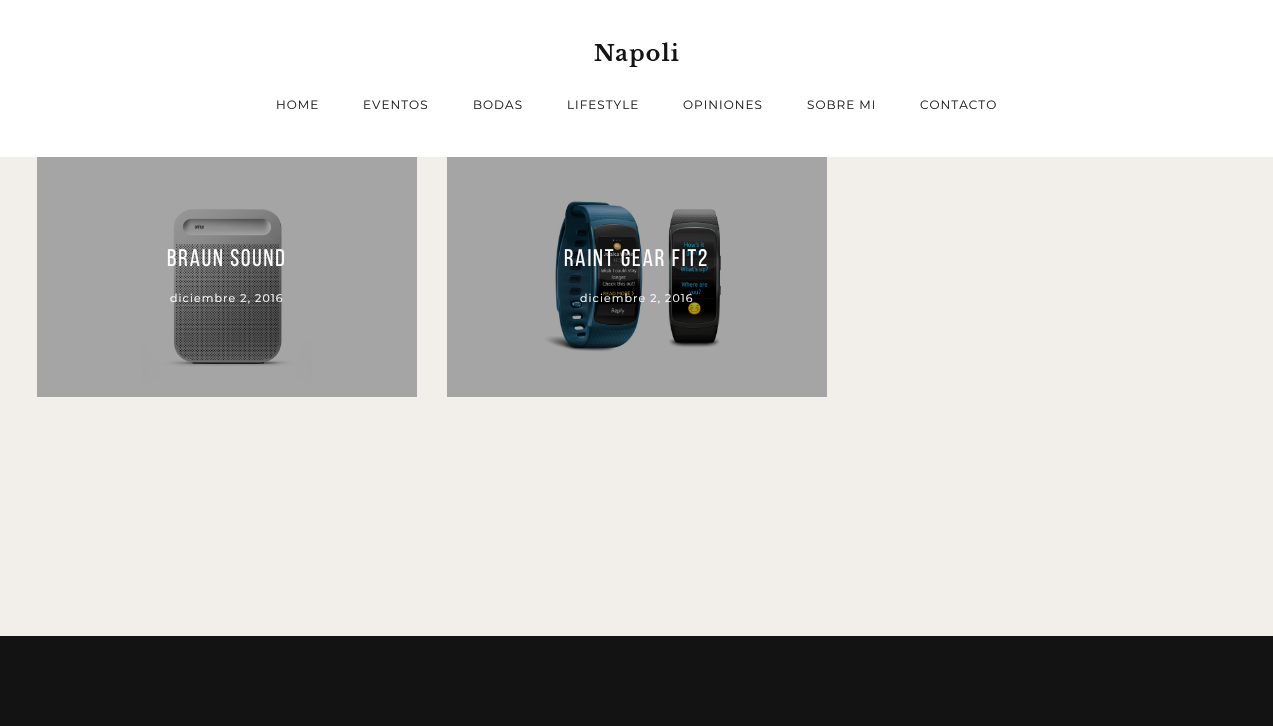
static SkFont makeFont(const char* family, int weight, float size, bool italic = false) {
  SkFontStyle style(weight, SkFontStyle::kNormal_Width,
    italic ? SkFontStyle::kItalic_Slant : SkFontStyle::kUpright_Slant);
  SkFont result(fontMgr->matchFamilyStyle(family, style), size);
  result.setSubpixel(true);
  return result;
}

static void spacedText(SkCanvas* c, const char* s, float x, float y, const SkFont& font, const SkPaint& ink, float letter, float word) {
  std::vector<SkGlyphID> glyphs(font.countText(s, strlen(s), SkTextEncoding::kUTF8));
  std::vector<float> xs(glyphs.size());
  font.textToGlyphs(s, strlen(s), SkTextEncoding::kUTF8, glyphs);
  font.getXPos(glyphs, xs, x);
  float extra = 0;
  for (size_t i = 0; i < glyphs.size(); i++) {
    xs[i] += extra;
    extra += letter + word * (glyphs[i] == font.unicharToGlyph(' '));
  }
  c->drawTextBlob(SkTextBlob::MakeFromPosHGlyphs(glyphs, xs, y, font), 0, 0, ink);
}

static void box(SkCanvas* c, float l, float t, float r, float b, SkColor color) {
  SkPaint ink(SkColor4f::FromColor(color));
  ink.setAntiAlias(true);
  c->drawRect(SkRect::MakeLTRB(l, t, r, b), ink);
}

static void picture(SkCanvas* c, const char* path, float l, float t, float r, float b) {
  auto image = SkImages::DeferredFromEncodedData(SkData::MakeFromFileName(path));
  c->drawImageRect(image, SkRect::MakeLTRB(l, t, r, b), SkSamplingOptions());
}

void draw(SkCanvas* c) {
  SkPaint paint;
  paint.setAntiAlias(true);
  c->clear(0xfff2efea);
  box(c, 0, 0, 1273, 157, 0xffffffff);
  picture(c, "img_01.png", 594, 42, 679, 67);
  SkFont face1 = makeFont("Montserrat", 400, 12);
  paint.setColor(0xff212121);
  spacedText(c, "HOME", 276, 109, face1, paint, 1, 0);
  spacedText(c, "EVENTOS", 363, 109, face1, paint, 1, 0);
  spacedText(c, "BODAS", 473, 109, face1, paint, 1, 0);
  spacedText(c, "LIFESTYLE", 567, 109, face1, paint, 1, 0);
  spacedText(c, "OPINIONES", 683, 109, face1, paint, 1, 0);
  spacedText(c, "SOBRE MI", 807, 109, face1, paint, 1, 0);
  spacedText(c, "CONTACTO", 920, 109, face1, paint, 1, 0);
  picture(c, "img_02.png", 37, 157, 417, 397);
  SkFont face2 = makeFont("Bebas Neue", 400, 24);
  paint.setColor(0xffffffff);
  spacedText(c, "BRAUN SOUND", 167, 266, face2, paint, 1.9f, 0);
  SkFont face3 = makeFont("Montserrat", 400, 11);
  spacedText(c, "diciembre 2, 2016", 170, 302, face3, paint, 1.1f, 0);
  picture(c, "img_03.png", 447, 157, 827, 397);
  spacedText(c, "RAINT GEAR FIT2", 564, 266, face2, paint, 1.9f, 0);
  spacedText(c, "diciembre 2, 2016", 580, 302, face3, paint, 1.1f, 0);
  box(c, 0, 636, 1273, 726, 0xff131313);
}
